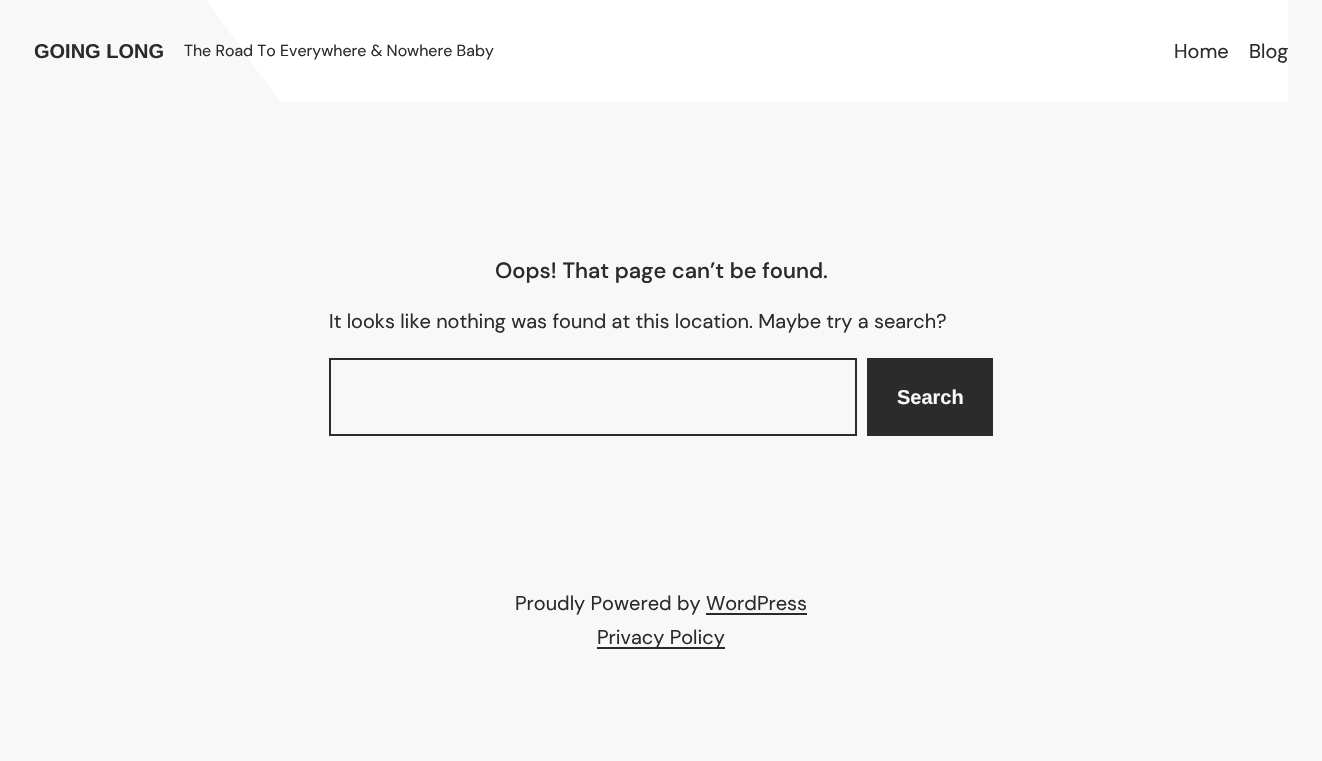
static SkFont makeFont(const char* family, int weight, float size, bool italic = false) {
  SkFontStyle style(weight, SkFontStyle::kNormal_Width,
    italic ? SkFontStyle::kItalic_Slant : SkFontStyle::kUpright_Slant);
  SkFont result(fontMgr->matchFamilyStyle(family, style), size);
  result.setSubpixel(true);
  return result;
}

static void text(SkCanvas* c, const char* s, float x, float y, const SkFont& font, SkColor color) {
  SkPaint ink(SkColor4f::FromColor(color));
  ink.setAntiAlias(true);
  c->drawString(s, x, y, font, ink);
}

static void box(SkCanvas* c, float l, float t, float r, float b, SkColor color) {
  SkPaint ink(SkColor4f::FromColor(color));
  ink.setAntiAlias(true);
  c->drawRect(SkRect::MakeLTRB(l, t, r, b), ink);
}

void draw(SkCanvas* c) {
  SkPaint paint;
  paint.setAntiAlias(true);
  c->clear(0xfff8f8f8);
  paint.setColor(0xffffffff);
  c->drawPath(SkPathBuilder().moveTo(206, 0).lineTo(280, 102).lineTo(1288, 102).lineTo(1288, 0).close().detach(), paint);
  SkFont face1 = makeFont("Liberation Sans", 700, 20);
  text(c, "GOING LONG", 34, 58, face1, 0xff2b2b2b);
  SkFont face2 = makeFont("DM Sans", 400, 16);
  text(c, "The Road To Everywhere & Nowhere Baby", 184, 56, face2, 0xff2b2b2b);
  SkFont face3 = makeFont("DM Sans", 400, 20);
  text(c, "Home", 1174, 58, face3, 0xff2b2b2b);
  text(c, "Blog", 1249, 58, face3, 0xff2b2b2b);
  SkFont face4 = makeFont("DM Sans", 500, 22);
  text(c, "Oops! That page can’t be found.", 495, 278, face4, 0xff2b2b2b);
  text(c, "It looks like nothing was found at this location. Maybe try a search?", 329, 328, face3, 0xff2b2b2b);
  paint.setStyle(SkPaint::kStroke_Style);
  paint.setStrokeWidth(2);
  paint.setColor(0xff2b2b2b);
  c->drawRect(SkRect::MakeLTRB(330, 359, 856, 435), paint);
  box(c, 867, 358, 993, 436, 0xff2b2b2b);
  text(c, "Search", 897, 404, face1, 0xfff8f8f8);
  text(c, "Proudly Powered by WordPress", 515, 610, face3, 0xff2b2b2b);
  box(c, 706, 613, 807, 615, 0xff2b2b2b);
  box(c, 597, 647, 725, 649, 0xff2b2b2b);
  text(c, "Privacy Policy", 597, 644, face3, 0xff2b2b2b);
}
